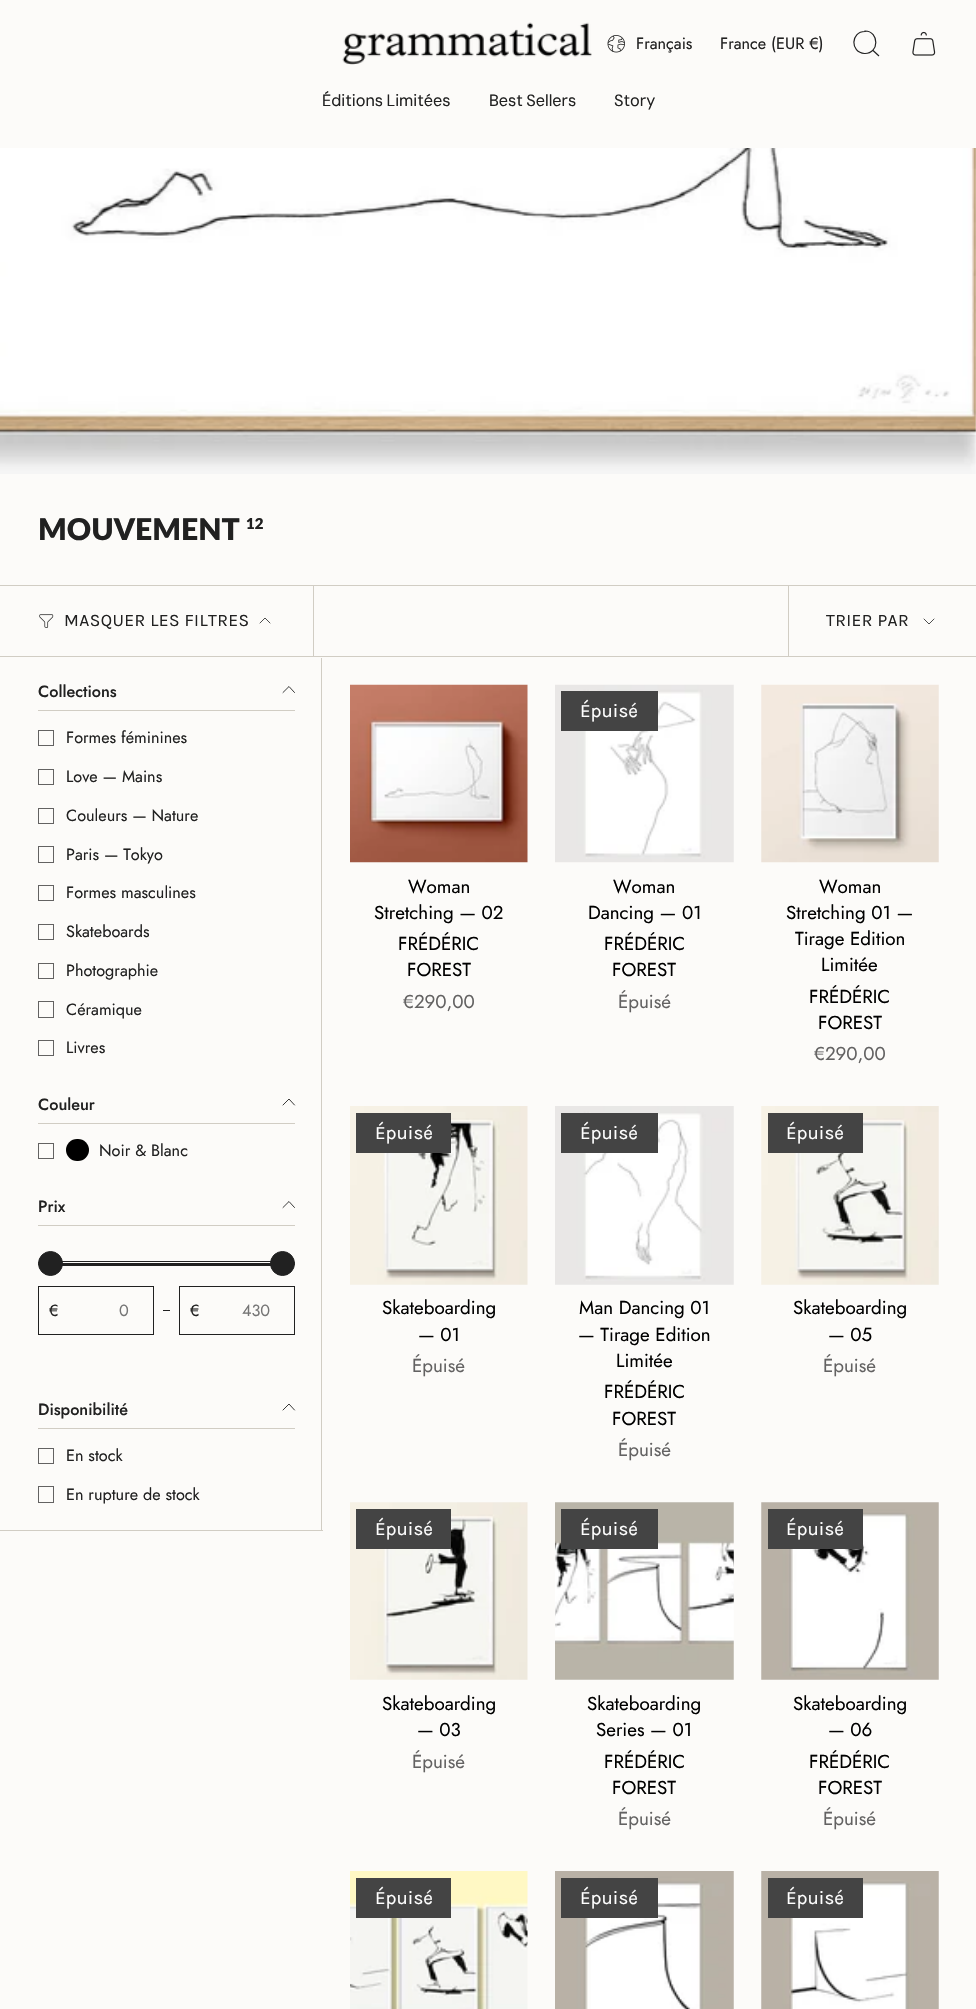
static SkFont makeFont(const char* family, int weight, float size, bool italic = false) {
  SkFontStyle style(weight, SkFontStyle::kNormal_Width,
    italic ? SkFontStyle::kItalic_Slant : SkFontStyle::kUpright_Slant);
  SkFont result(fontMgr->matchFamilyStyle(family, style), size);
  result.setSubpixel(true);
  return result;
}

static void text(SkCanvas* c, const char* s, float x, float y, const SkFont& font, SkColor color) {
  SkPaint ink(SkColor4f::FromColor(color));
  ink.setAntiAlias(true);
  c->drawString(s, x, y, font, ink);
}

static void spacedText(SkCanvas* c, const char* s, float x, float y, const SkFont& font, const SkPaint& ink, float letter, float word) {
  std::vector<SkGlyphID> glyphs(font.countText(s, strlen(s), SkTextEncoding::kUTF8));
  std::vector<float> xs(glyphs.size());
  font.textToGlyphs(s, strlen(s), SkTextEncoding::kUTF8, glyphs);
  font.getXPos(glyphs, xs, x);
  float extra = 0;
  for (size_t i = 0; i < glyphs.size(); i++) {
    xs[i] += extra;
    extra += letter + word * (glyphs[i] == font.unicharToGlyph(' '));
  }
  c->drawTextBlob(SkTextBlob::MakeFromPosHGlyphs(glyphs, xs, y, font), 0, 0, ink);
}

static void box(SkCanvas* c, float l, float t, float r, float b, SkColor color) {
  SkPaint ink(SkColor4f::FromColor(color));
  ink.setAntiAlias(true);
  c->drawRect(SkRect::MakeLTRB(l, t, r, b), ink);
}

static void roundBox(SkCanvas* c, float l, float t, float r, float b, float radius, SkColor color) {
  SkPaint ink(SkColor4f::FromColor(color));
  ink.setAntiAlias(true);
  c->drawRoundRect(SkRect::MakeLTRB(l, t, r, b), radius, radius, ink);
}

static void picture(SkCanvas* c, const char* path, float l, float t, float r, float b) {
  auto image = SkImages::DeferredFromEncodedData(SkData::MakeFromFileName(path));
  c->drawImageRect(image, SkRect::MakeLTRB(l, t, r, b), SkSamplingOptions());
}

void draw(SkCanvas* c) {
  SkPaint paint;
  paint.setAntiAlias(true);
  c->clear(0xfffcfbf9);
  picture(c, "img_01.png", 342, 22, 592, 65);
  picture(c, "img_02.png", 607, 35, 625, 53);
  SkFont face1 = makeFont("Jost", 400, 16.25f);
  text(c, "Français", 636, 49, face1, 0xff212121);
  text(c, "France (EUR €)", 720, 49, face1, 0xff212121);
  paint.setStyle(SkPaint::kStroke_Style);
  paint.setStrokeWidth(1.2f);
  paint.setColor(0xff212121);
  c->drawPath(SkPathBuilder().moveTo(865, 31).cubicTo(879.5f, 31, 879.5f, 54, 864.5f, 53.5f).cubicTo(850, 52.5f, 850.5f, 31.5f, 865, 31.5f).close().moveTo(872.5f, 50).lineTo(879, 56).detach(), paint);
  picture(c, "img_03.png", 912, 31, 936, 56);
  SkFont face2 = makeFont("DM Sans", 400, 16.25f);
  paint.setStyle(SkPaint::kFill_Style);
  spacedText(c, "Éditions Limitées", 322, 106, face2, paint, 0, -1);
  spacedText(c, "Best Sellers", 489, 106, face2, paint, 0, -1);
  text(c, "Story", 614, 106, face2, 0xff212121);
  picture(c, "img_04.png", 0, 148, 976, 474);
  SkFont face3 = makeFont("Lato", 800, 30);
  text(c, "MOUVEMENT", 38, 540, face3, 0xff212121);
  SkFont face4 = makeFont("Lato", 800, 15);
  text(c, "12", 246, 529, face4, 0xff212121);
  box(c, 0, 585, 976, 586, 0xffd1cdc4);
  box(c, 0, 656, 976, 657, 0xffd1cdc4);
  box(c, 313, 586, 314, 656, 0xffd1cdc4);
  picture(c, "img_05.png", 39, 614, 54, 628);
  SkFont face5 = makeFont("Karla", 400, 17.5f);
  spacedText(c, "MASQUER LES FILTRES", 64, 626, face5, paint, 0.4f, 0);
  paint.setStyle(SkPaint::kStroke_Style);
  paint.setStrokeWidth(0.8f);
  paint.setStrokeCap(SkPaint::kRound_Cap);
  paint.setStrokeJoin(SkPaint::kRound_Join);
  c->drawPath(SkPathBuilder().moveTo(260, 623).lineTo(265, 618).lineTo(270, 623).detach(), paint);
  box(c, 788, 586, 789, 656, 0xffd1cdc4);
  paint.setStyle(SkPaint::kFill_Style);
  spacedText(c, "TRIER PAR", 826, 626, face5, paint, 0.4f, 0);
  paint.setStyle(SkPaint::kStroke_Style);
  c->drawPath(SkPathBuilder().moveTo(924, 619).lineTo(929, 624).lineTo(934, 619).detach(), paint);
  box(c, 321, 658, 322, 1531, 0xffd1cdc4);
  box(c, 0, 1530, 323, 1531, 0xffd1cdc4);
  box(c, 38, 710, 295, 711, 0xffd1cdc4);
  SkFont face6 = makeFont("Jost", 500, 16.25f);
  text(c, "Collections", 38, 697, face6, 0xff212121);
  paint.setStrokeWidth(0.9f);
  c->drawPath(SkPathBuilder().moveTo(283, 692.5f).lineTo(289, 686.5f).lineTo(294.5f, 692.5f).detach(), paint);
  paint.setStrokeWidth(1);
  paint.setStrokeCap(SkPaint::kButt_Cap);
  paint.setStrokeJoin(SkPaint::kMiter_Join);
  paint.setColor(0xff636262);
  c->drawRect(SkRect::MakeLTRB(38.5f, 730.5f, 53.5f, 745.5f), paint);
  text(c, "Formes féminines", 66, 743, face1, 0xff212121);
  c->drawRect(SkRect::MakeLTRB(38.5f, 769.5f, 53.5f, 784.5f), paint);
  text(c, "Love — Mains", 66, 782, face1, 0xff212121);
  c->drawRect(SkRect::MakeLTRB(38.5f, 808.5f, 53.5f, 823.5f), paint);
  text(c, "Couleurs — Nature", 66, 821, face1, 0xff212121);
  c->drawRect(SkRect::MakeLTRB(38.5f, 846.5f, 53.5f, 862.5f), paint);
  text(c, "Paris — Tokyo", 66, 860, face1, 0xff212121);
  c->drawRect(SkRect::MakeLTRB(38.5f, 885.5f, 53.5f, 900.5f), paint);
  text(c, "Formes masculines", 66, 898, face1, 0xff212121);
  c->drawRect(SkRect::MakeLTRB(38.5f, 924.5f, 53.5f, 939.5f), paint);
  text(c, "Skateboards", 66, 937, face1, 0xff212121);
  c->drawRect(SkRect::MakeLTRB(38.5f, 963.5f, 53.5f, 978.5f), paint);
  text(c, "Photographie", 66, 976, face1, 0xff212121);
  c->drawRect(SkRect::MakeLTRB(38.5f, 1001.5f, 53.5f, 1017.5f), paint);
  text(c, "Céramique", 66, 1015, face1, 0xff212121);
  c->drawRect(SkRect::MakeLTRB(38.5f, 1040.5f, 53.5f, 1055.5f), paint);
  text(c, "Livres", 66, 1053, face1, 0xff212121);
  box(c, 38, 1123, 295, 1124, 0xffd1cdc4);
  text(c, "Couleur", 38, 1110, face6, 0xff212121);
  paint.setStrokeWidth(0.9f);
  paint.setStrokeCap(SkPaint::kRound_Cap);
  paint.setStrokeJoin(SkPaint::kRound_Join);
  paint.setColor(0xff212121);
  c->drawPath(SkPathBuilder().moveTo(283, 1105).lineTo(289, 1099).lineTo(294.5f, 1105).detach(), paint);
  paint.setStrokeWidth(1);
  paint.setStrokeCap(SkPaint::kButt_Cap);
  paint.setStrokeJoin(SkPaint::kMiter_Join);
  paint.setColor(0xff636262);
  c->drawRect(SkRect::MakeLTRB(38.5f, 1143.5f, 53.5f, 1158.5f), paint);
  roundBox(c, 66, 1139, 89, 1161, 11, 0xff000000);
  text(c, "Noir & Blanc", 99, 1156, face1, 0xff212121);
  box(c, 38, 1225, 295, 1226, 0xffd1cdc4);
  text(c, "Prix", 38, 1212, face6, 0xff212121);
  paint.setStrokeWidth(0.9f);
  paint.setStrokeCap(SkPaint::kRound_Cap);
  paint.setStrokeJoin(SkPaint::kRound_Join);
  paint.setColor(0xff212121);
  c->drawPath(SkPathBuilder().moveTo(283, 1207.5f).lineTo(289, 1201.5f).lineTo(294.5f, 1207.5f).detach(), paint);
  paint.setStrokeWidth(1);
  paint.setStrokeCap(SkPaint::kButt_Cap);
  paint.setStrokeJoin(SkPaint::kMiter_Join);
  c->drawRoundRect(SkRect::MakeLTRB(38.5f, 1261.5f, 294.5f, 1265.5f), 2, 2, paint);
  box(c, 62, 1263, 271, 1265, 0xff212121);
  paint.setStyle(SkPaint::kFill_Style);
  c->drawCircle(50.5f, 1263.5f, 12, paint);
  paint.setStyle(SkPaint::kStroke_Style);
  c->drawCircle(50.5f, 1263.5f, 12, paint);
  paint.setStyle(SkPaint::kFill_Style);
  c->drawCircle(282.5f, 1263.5f, 12, paint);
  paint.setStyle(SkPaint::kStroke_Style);
  c->drawCircle(282.5f, 1263.5f, 12, paint);
  c->drawRect(SkRect::MakeLTRB(38.5f, 1286.5f, 153.5f, 1334.5f), paint);
  text(c, "€", 49, 1316, face1, 0xff212121);
  text(c, "0", 119, 1316, face1, 0xff757575);
  box(c, 163, 1310, 170, 1311, 0xff212121);
  c->drawRect(SkRect::MakeLTRB(179.5f, 1286.5f, 294.5f, 1334.5f), paint);
  text(c, "€", 190, 1316, face1, 0xff212121);
  text(c, "430", 242, 1316, face1, 0xff757575);
  box(c, 38, 1428, 295, 1429, 0xffd1cdc4);
  text(c, "Disponibilité", 38, 1415, face6, 0xff212121);
  paint.setStrokeWidth(0.9f);
  paint.setStrokeCap(SkPaint::kRound_Cap);
  paint.setStrokeJoin(SkPaint::kRound_Join);
  c->drawPath(SkPathBuilder().moveTo(283, 1410).lineTo(289, 1404).lineTo(294.5f, 1410).detach(), paint);
  paint.setStrokeWidth(1);
  paint.setStrokeCap(SkPaint::kButt_Cap);
  paint.setStrokeJoin(SkPaint::kMiter_Join);
  paint.setColor(0xff636262);
  c->drawRect(SkRect::MakeLTRB(38.5f, 1448.5f, 53.5f, 1463.5f), paint);
  text(c, "En stock", 66, 1461, face1, 0xff212121);
  c->drawRect(SkRect::MakeLTRB(38.5f, 1486.5f, 53.5f, 1502.5f), paint);
  text(c, "En rupture de stock", 66, 1500, face1, 0xff212121);
  picture(c, "img_06.png", 350, 684, 528, 863);
  SkFont face7 = makeFont("Jost", 400, 18.75f);
  text(c, "Woman", 408, 893, face7, 0xff000000);
  text(c, "Stretching — 02", 374, 919, face7, 0xff000000);
  text(c, "FRÉDÉRIC", 398, 950, face7, 0xff000000);
  text(c, "FOREST", 407, 976, face7, 0xff000000);
  text(c, "€290,00", 403, 1008, face7, 0xff636262);
  picture(c, "img_07.png", 555, 684, 734, 863);
  box(c, 561, 691, 658, 731, 0xff444444);
  SkFont face8 = makeFont("Karla", 400, 18.75f);
  text(c, "Épuisé", 580, 717, face8, 0xffffffff);
  text(c, "Woman", 613, 893, face7, 0xff000000);
  text(c, "Dancing — 01", 588, 919, face7, 0xff000000);
  text(c, "FRÉDÉRIC", 604, 950, face7, 0xff000000);
  text(c, "FOREST", 612, 976, face7, 0xff000000);
  text(c, "Épuisé", 618, 1008, face7, 0xff636262);
  picture(c, "img_08.png", 761, 684, 939, 863);
  text(c, "Woman", 819, 893, face7, 0xff000000);
  text(c, "Stretching 01 —", 786, 919, face7, 0xff000000);
  text(c, "Tirage Edition", 795, 945, face7, 0xff000000);
  text(c, "Limitée", 821, 971, face7, 0xff000000);
  text(c, "FRÉDÉRIC", 809, 1003, face7, 0xff000000);
  text(c, "FOREST", 818, 1029, face7, 0xff000000);
  text(c, "€290,00", 814, 1060, face7, 0xff636262);
  picture(c, "img_09.png", 350, 1106, 528, 1285);
  box(c, 356, 1113, 451, 1153, 0xff444444);
  text(c, "Épuisé", 375, 1139, face8, 0xffffffff);
  text(c, "Skateboarding", 382, 1314, face7, 0xff000000);
  text(c, "— 01", 418, 1341, face7, 0xff000000);
  text(c, "Épuisé", 412, 1372, face7, 0xff636262);
  picture(c, "img_10.png", 555, 1106, 734, 1285);
  box(c, 561, 1113, 658, 1153, 0xff444444);
  text(c, "Épuisé", 580, 1139, face8, 0xffffffff);
  text(c, "Man Dancing 01", 579, 1314, face7, 0xff000000);
  text(c, "— Tirage Edition", 578, 1341, face7, 0xff000000);
  text(c, "Limitée", 616, 1367, face7, 0xff000000);
  text(c, "FRÉDÉRIC", 604, 1398, face7, 0xff000000);
  text(c, "FOREST", 612, 1425, face7, 0xff000000);
  text(c, "Épuisé", 618, 1456, face7, 0xff636262);
  picture(c, "img_11.png", 761, 1106, 939, 1285);
  box(c, 768, 1113, 863, 1153, 0xff444444);
  text(c, "Épuisé", 786, 1139, face8, 0xffffffff);
  text(c, "Skateboarding", 793, 1314, face7, 0xff000000);
  text(c, "— 05", 828, 1341, face7, 0xff000000);
  text(c, "Épuisé", 823, 1372, face7, 0xff636262);
  picture(c, "img_12.png", 350, 1502, 528, 1680);
  box(c, 356, 1509, 451, 1549, 0xff444444);
  text(c, "Épuisé", 375, 1535, face8, 0xffffffff);
  text(c, "Skateboarding", 382, 1710, face7, 0xff000000);
  text(c, "— 03", 417, 1736, face7, 0xff000000);
  text(c, "Épuisé", 412, 1768, face7, 0xff636262);
  picture(c, "img_13.png", 555, 1502, 734, 1680);
  box(c, 561, 1509, 658, 1549, 0xff444444);
  text(c, "Épuisé", 580, 1535, face8, 0xffffffff);
  text(c, "Skateboarding", 587, 1710, face7, 0xff000000);
  text(c, "Series — 01", 596, 1736, face7, 0xff000000);
  text(c, "FRÉDÉRIC", 604, 1768, face7, 0xff000000);
  text(c, "FOREST", 612, 1794, face7, 0xff000000);
  text(c, "Épuisé", 618, 1825, face7, 0xff636262);
  picture(c, "img_14.png", 761, 1502, 939, 1680);
  box(c, 768, 1509, 863, 1549, 0xff444444);
  text(c, "Épuisé", 786, 1535, face8, 0xffffffff);
  text(c, "Skateboarding", 793, 1710, face7, 0xff000000);
  text(c, "— 06", 828, 1736, face7, 0xff000000);
  text(c, "FRÉDÉRIC", 809, 1768, face7, 0xff000000);
  text(c, "FOREST", 818, 1794, face7, 0xff000000);
  text(c, "Épuisé", 823, 1825, face7, 0xff636262);
  picture(c, "img_15.png", 350, 1871, 528, 2009);
  box(c, 356, 1878, 451, 1918, 0xff444444);
  text(c, "Épuisé", 375, 1904, face8, 0xffffffff);
  picture(c, "img_16.png", 555, 1871, 734, 2009);
  box(c, 561, 1878, 658, 1918, 0xff444444);
  text(c, "Épuisé", 580, 1904, face8, 0xffffffff);
  picture(c, "img_17.png", 761, 1871, 939, 2009);
  box(c, 768, 1878, 863, 1918, 0xff444444);
  text(c, "Épuisé", 786, 1904, face8, 0xffffffff);
}
